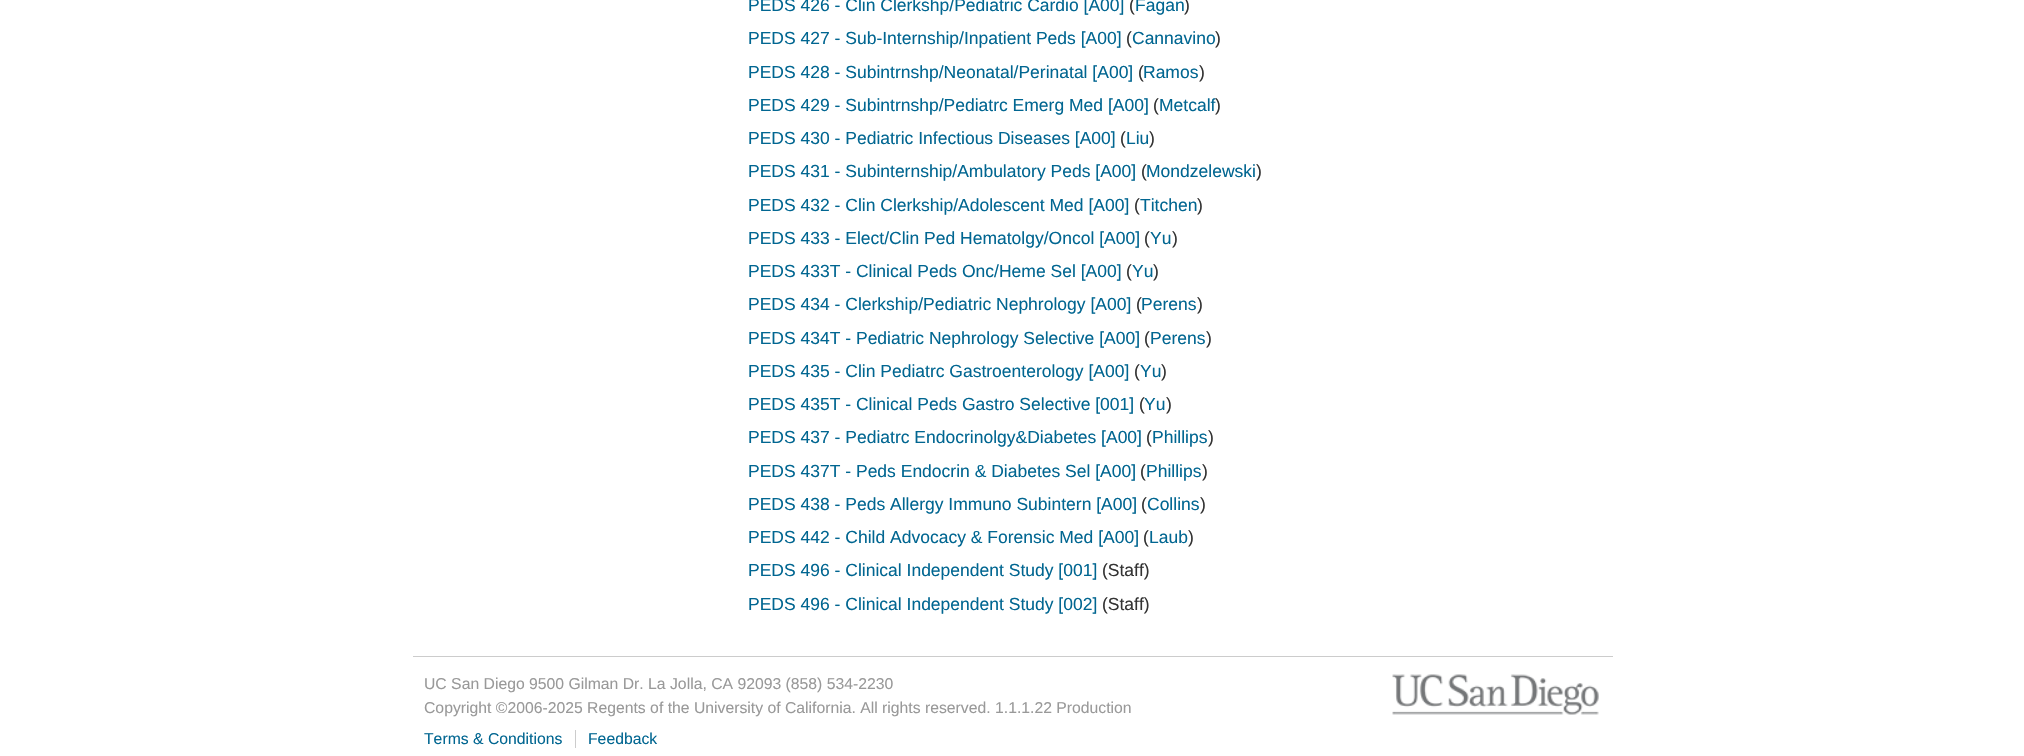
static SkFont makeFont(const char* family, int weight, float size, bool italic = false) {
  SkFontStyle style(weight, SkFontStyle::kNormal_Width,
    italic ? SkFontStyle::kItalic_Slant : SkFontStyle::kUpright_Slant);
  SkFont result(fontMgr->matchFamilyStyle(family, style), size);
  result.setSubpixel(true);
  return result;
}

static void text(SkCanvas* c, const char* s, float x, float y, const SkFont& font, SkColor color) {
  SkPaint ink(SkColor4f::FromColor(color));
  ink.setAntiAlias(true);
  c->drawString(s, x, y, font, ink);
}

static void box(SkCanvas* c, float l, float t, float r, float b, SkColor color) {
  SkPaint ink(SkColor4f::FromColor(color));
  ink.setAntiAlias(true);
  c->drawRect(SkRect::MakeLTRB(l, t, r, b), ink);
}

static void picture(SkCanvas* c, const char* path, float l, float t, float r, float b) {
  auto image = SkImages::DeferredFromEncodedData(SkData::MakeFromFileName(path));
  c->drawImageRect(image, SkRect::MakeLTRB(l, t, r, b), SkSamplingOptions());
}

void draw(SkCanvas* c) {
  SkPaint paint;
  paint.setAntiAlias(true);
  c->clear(0xffffffff);
  SkFont face1 = makeFont("Liberation Sans", 400, 17.5f);
  text(c, "PEDS 426 - Clin Clerkshp/Pediatric Cardio [A00]", 748, 11, face1, 0xff016691);
  text(c, "(", 1129, 11, face1, 0xff333333);
  text(c, "Fagan", 1135, 11, face1, 0xff016691);
  text(c, ")", 1184, 11, face1, 0xff333333);
  text(c, "PEDS 427 - Sub-Internship/Inpatient Peds [A00]", 748, 44, face1, 0xff016691);
  text(c, "(", 1126, 44, face1, 0xff333333);
  text(c, "Cannavino", 1132, 44, face1, 0xff016691);
  text(c, ")", 1215, 44, face1, 0xff333333);
  text(c, "PEDS 428 - Subintrnshp/Neonatal/Perinatal [A00]", 748, 78, face1, 0xff016691);
  text(c, "(", 1138, 78, face1, 0xff333333);
  text(c, "Ramos", 1143, 78, face1, 0xff016691);
  text(c, ")", 1199, 78, face1, 0xff333333);
  text(c, "PEDS 429 - Subintrnshp/Pediatrc Emerg Med [A00]", 748, 111, face1, 0xff016691);
  text(c, "(", 1153, 111, face1, 0xff333333);
  text(c, "Metcalf", 1159, 111, face1, 0xff016691);
  text(c, ")", 1215, 111, face1, 0xff333333);
  text(c, "PEDS 430 - Pediatric Infectious Diseases [A00]", 748, 144, face1, 0xff016691);
  text(c, "(", 1120, 144, face1, 0xff333333);
  text(c, "Liu", 1126, 144, face1, 0xff016691);
  text(c, ")", 1149, 144, face1, 0xff333333);
  text(c, "PEDS 431 - Subinternship/Ambulatory Peds [A00]", 748, 177, face1, 0xff016691);
  text(c, "(", 1141, 177, face1, 0xff333333);
  text(c, "Mondzelewski", 1146, 177, face1, 0xff016691);
  text(c, ")", 1256, 177, face1, 0xff333333);
  text(c, "PEDS 432 - Clin Clerkship/Adolescent Med [A00]", 748, 211, face1, 0xff016691);
  text(c, "(", 1134, 211, face1, 0xff333333);
  text(c, "Titchen", 1140, 211, face1, 0xff016691);
  text(c, ")", 1197, 211, face1, 0xff333333);
  text(c, "PEDS 433 - Elect/Clin Ped Hematolgy/Oncol [A00]", 748, 244, face1, 0xff016691);
  text(c, "(", 1144, 244, face1, 0xff333333);
  text(c, "Yu", 1150, 244, face1, 0xff016691);
  text(c, ")", 1172, 244, face1, 0xff333333);
  text(c, "PEDS 433T - Clinical Peds Onc/Heme Sel [A00]", 748, 277, face1, 0xff016691);
  text(c, "(", 1126, 277, face1, 0xff333333);
  text(c, "Yu", 1132, 277, face1, 0xff016691);
  text(c, ")", 1153, 277, face1, 0xff333333);
  text(c, "PEDS 434 - Clerkship/Pediatric Nephrology [A00]", 748, 310, face1, 0xff016691);
  text(c, "(", 1136, 310, face1, 0xff333333);
  text(c, "Perens", 1141, 310, face1, 0xff016691);
  text(c, ")", 1197, 310, face1, 0xff333333);
  text(c, "PEDS 434T - Pediatric Nephrology Selective [A00]", 748, 344, face1, 0xff016691);
  text(c, "(", 1144, 344, face1, 0xff333333);
  text(c, "Perens", 1150, 344, face1, 0xff016691);
  text(c, ")", 1206, 344, face1, 0xff333333);
  text(c, "PEDS 435 - Clin Pediatrc Gastroenterology [A00]", 748, 377, face1, 0xff016691);
  text(c, "(", 1134, 377, face1, 0xff333333);
  text(c, "Yu", 1140, 377, face1, 0xff016691);
  text(c, ")", 1161, 377, face1, 0xff333333);
  text(c, "PEDS 435T - Clinical Peds Gastro Selective [001]", 748, 410, face1, 0xff016691);
  text(c, "(", 1139, 410, face1, 0xff333333);
  text(c, "Yu", 1144, 410, face1, 0xff016691);
  text(c, ")", 1166, 410, face1, 0xff333333);
  text(c, "PEDS 437 - Pediatrc Endocrinolgy&Diabetes [A00]", 748, 443, face1, 0xff016691);
  text(c, "(", 1146, 443, face1, 0xff333333);
  text(c, "Phillips", 1152, 443, face1, 0xff016691);
  text(c, ")", 1208, 443, face1, 0xff333333);
  text(c, "PEDS 437T - Peds Endocrin & Diabetes Sel [A00]", 748, 477, face1, 0xff016691);
  text(c, "(", 1140, 477, face1, 0xff333333);
  text(c, "Phillips", 1146, 477, face1, 0xff016691);
  text(c, ")", 1202, 477, face1, 0xff333333);
  text(c, "PEDS 438 - Peds Allergy Immuno Subintern [A00]", 748, 510, face1, 0xff016691);
  text(c, "(", 1141, 510, face1, 0xff333333);
  text(c, "Collins", 1147, 510, face1, 0xff016691);
  text(c, ")", 1200, 510, face1, 0xff333333);
  text(c, "PEDS 442 - Child Advocacy & Forensic Med [A00]", 748, 543, face1, 0xff016691);
  text(c, "(", 1143, 543, face1, 0xff333333);
  text(c, "Laub", 1149, 543, face1, 0xff016691);
  text(c, ")", 1188, 543, face1, 0xff333333);
  text(c, "PEDS 496 - Clinical Independent Study [001]", 748, 576, face1, 0xff016691);
  text(c, "(Staff)", 1102, 576, face1, 0xff333333);
  text(c, "PEDS 496 - Clinical Independent Study [002]", 748, 610, face1, 0xff016691);
  text(c, "(Staff)", 1102, 610, face1, 0xff333333);
  box(c, 413, 656, 1613, 657, 0xffcccccc);
  picture(c, "img_01.png", 1392, 674, 1599, 715);
  SkFont face2 = makeFont("Liberation Sans", 400, 15.75f);
  text(c, "UC San Diego 9500 Gilman Dr. La Jolla, CA 92093 (858) 534-2230", 424, 689, face2, 0xff999999);
  text(c, "Copyright ©2006-2025 Regents of the University of California. All rights reserved. 1.1.1.22 Production", 424, 713, face2, 0xff999999);
  text(c, "Terms & Conditions", 424, 744, face2, 0xff016691);
  box(c, 575, 730, 576, 748, 0xffcccccc);
  text(c, "Feedback", 588, 744, face2, 0xff016691);
}
